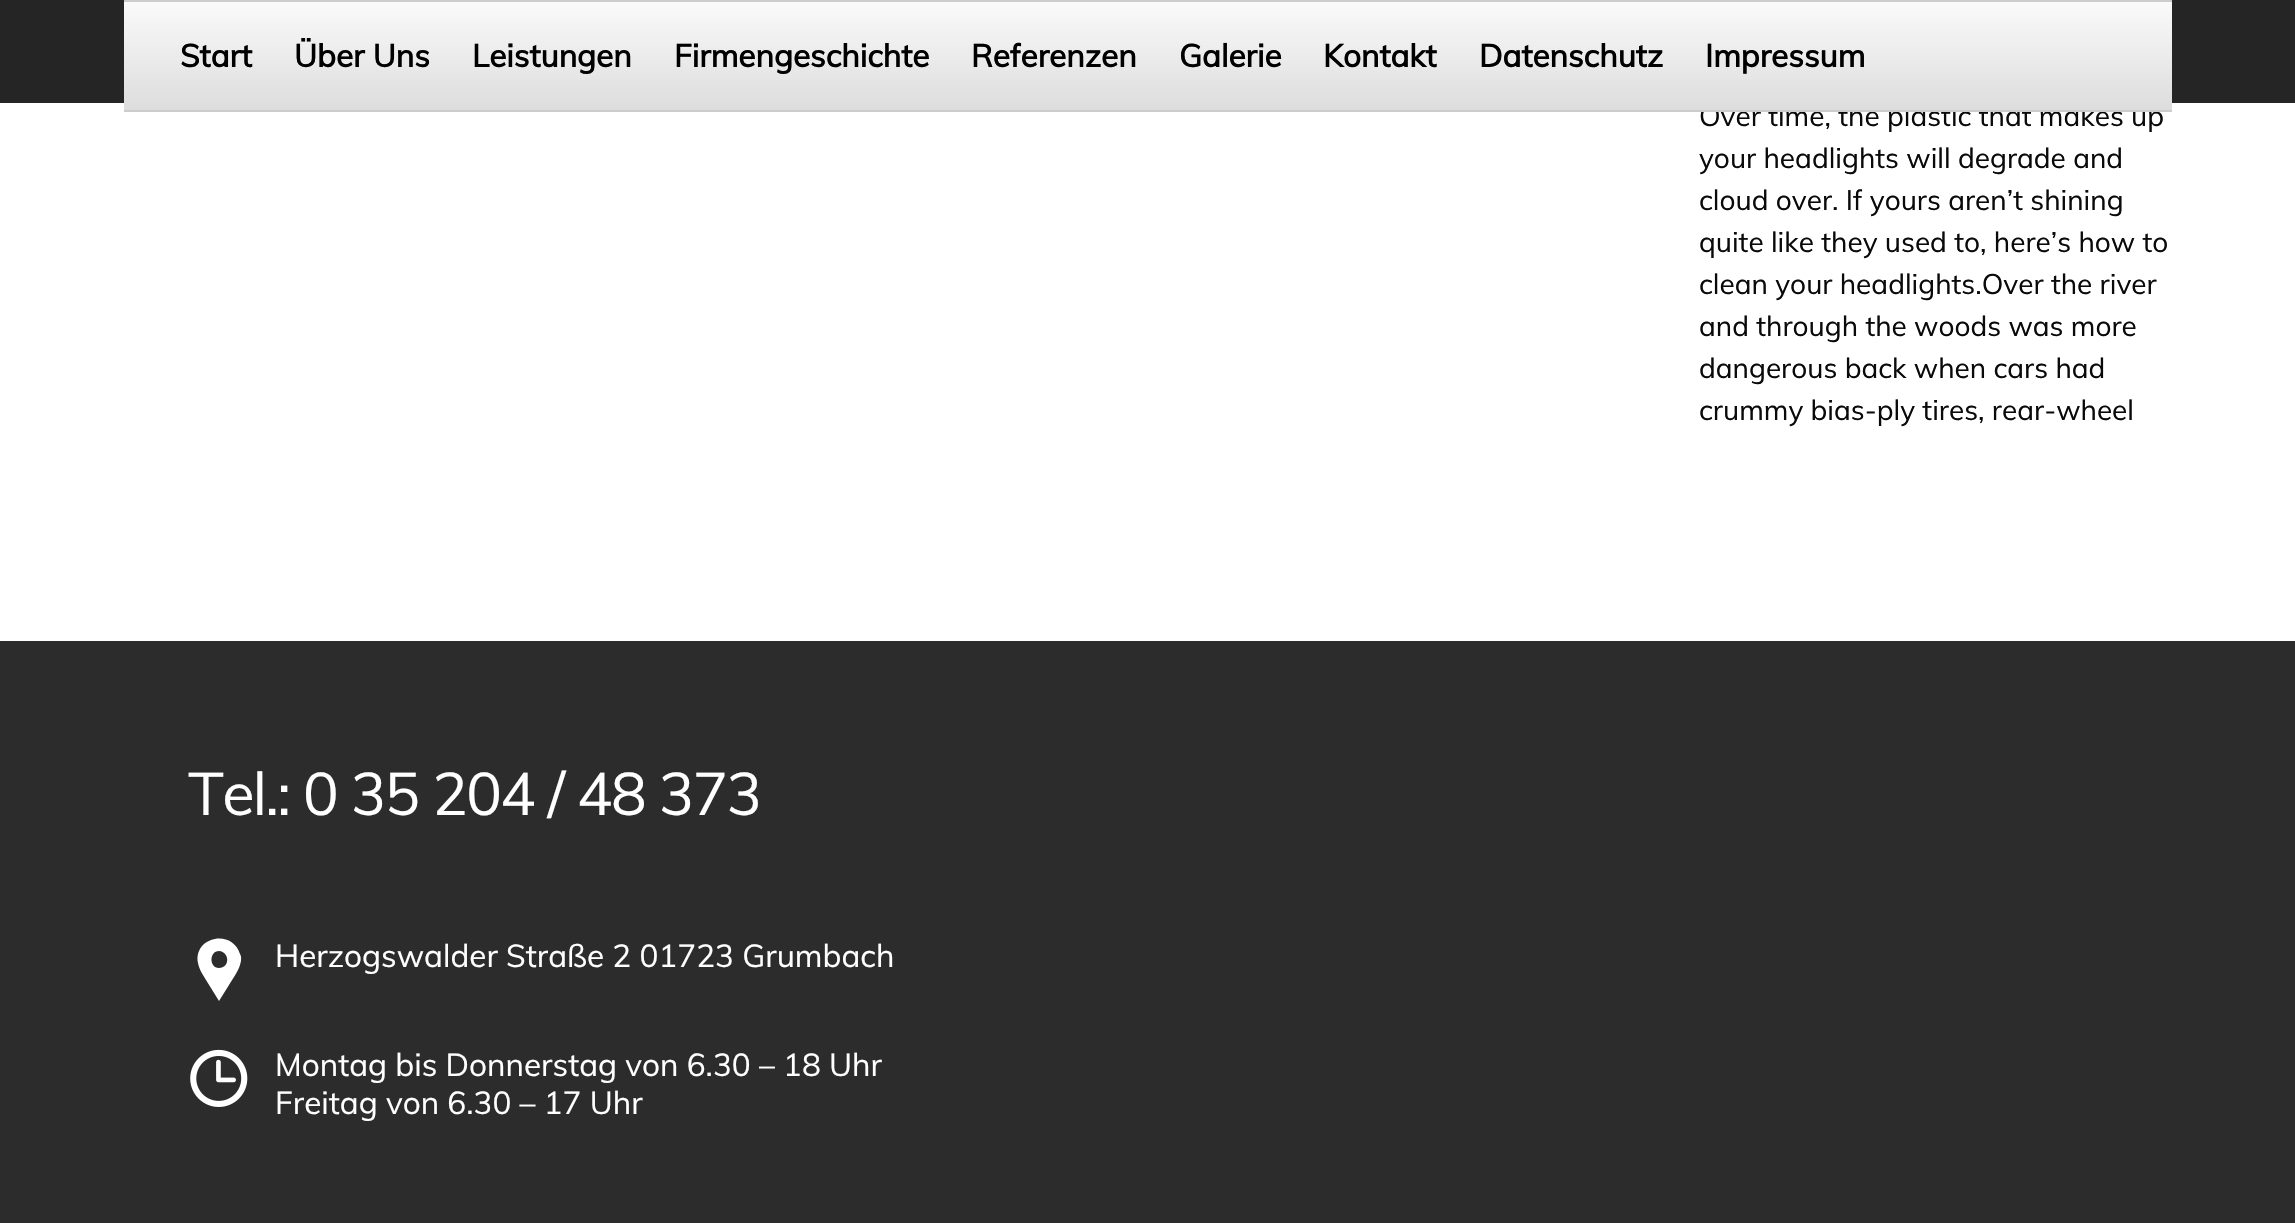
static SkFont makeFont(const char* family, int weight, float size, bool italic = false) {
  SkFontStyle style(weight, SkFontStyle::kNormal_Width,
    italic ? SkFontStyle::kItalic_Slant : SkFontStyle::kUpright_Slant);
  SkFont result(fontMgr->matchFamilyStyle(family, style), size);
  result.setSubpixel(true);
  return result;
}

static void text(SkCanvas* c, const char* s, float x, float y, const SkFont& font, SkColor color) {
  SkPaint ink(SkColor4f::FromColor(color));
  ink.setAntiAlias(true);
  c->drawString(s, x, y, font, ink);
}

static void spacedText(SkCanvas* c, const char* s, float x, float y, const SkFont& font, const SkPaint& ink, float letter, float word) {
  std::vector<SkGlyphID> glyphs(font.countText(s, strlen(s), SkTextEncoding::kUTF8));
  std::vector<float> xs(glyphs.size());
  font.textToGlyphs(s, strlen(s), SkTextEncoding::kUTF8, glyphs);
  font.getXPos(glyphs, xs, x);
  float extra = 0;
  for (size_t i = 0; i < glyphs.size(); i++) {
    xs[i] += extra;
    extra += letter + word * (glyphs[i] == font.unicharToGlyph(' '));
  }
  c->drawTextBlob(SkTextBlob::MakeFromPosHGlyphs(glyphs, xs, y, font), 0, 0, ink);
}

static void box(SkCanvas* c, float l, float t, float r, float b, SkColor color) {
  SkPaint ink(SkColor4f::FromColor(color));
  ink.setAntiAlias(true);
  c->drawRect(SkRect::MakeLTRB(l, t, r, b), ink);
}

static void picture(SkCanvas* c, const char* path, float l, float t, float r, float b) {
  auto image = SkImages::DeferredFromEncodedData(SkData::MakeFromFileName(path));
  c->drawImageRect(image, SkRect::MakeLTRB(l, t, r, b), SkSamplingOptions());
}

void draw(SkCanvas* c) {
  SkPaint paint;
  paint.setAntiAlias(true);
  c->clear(0xffffffff);
  box(c, 0, 0, 2295, 103, 0xff252525);
  SkFont face1 = makeFont("Muli", 400, 28);
  text(c, "Over time, the plastic that makes up", 1699, 126, face1, 0xff0a0a0a);
  {
    const SkColor colors[] = {0xfffafafa, 0xffdddddd};
    const float stops[] = {0, 1};
    const SkPoint ends[] = {{1148, 1.7f}, {1148, 110}};
    paint.setShader(SkGradientShader::MakeLinear(ends, colors, stops, 2, SkTileMode::kClamp));
    paint.setAlpha(255);
  }
  c->drawRect(SkRect::MakeLTRB(124, 2, 2172, 110), paint);
  box(c, 124, 0, 2172, 2, 0xffcccccc);
  box(c, 124, 110, 2172, 112, 0xffcccccc);
  SkFont face2 = makeFont("Muli", 700, 31.5f);
  text(c, "Start", 180, 67, face2, 0xff000000);
  text(c, "Über Uns", 294, 67, face2, 0xff000000);
  text(c, "Leistungen", 472, 67, face2, 0xff000000);
  text(c, "Firmengeschichte", 674, 67, face2, 0xff000000);
  text(c, "Referenzen", 971, 67, face2, 0xff000000);
  text(c, "Galerie", 1179, 67, face2, 0xff000000);
  text(c, "Kontakt", 1323, 67, face2, 0xff000000);
  text(c, "Datenschutz", 1479, 67, face2, 0xff000000);
  text(c, "Impressum", 1705, 67, face2, 0xff000000);
  text(c, "your headlights will degrade and", 1699, 168, face1, 0xff0a0a0a);
  text(c, "cloud over. If yours aren’t shining", 1699, 210, face1, 0xff0a0a0a);
  text(c, "quite like they used to, here’s how to", 1699, 252, face1, 0xff0a0a0a);
  text(c, "clean your headlights.Over the river", 1699, 294, face1, 0xff0a0a0a);
  text(c, "and through the woods was more", 1699, 336, face1, 0xff0a0a0a);
  text(c, "dangerous back when cars had", 1699, 378, face1, 0xff0a0a0a);
  text(c, "crummy bias-ply tires, rear-wheel", 1699, 420, face1, 0xff0a0a0a);
  box(c, 0, 641, 2295, 1223, 0xff2c2c2c);
  SkFont face3 = makeFont("Muli", 400, 59.5f);
  paint.setShader(nullptr);
  paint.setColor(0xffffffff);
  spacedText(c, "Tel.: 0 35 204 / 48 373", 188, 815, face3, paint, -1.75f, 0);
  c->drawPath(SkPathBuilder().moveTo(240, 954).cubicTo(232, 928, 193, 937, 198, 963).cubicTo(199, 969, 203, 975, 206, 980).lineTo(219, 1001).lineTo(229, 985).cubicTo(233, 978, 238, 972, 240, 965).cubicTo(241, 962, 242, 957, 240, 954).close().moveTo(219, 968).cubicTo(209, 968, 209, 951, 219, 951).cubicTo(230, 952, 230, 968, 219, 968).close().detach(), paint);
  SkFont face4 = makeFont("Muli", 400, 31.5f);
  text(c, "Herzogswalder Straße 2 01723 Grumbach", 275, 967, face4, 0xffffffff);
  picture(c, "img_01.png", 190, 1049, 248, 1107);
  text(c, "Montag bis Donnerstag von 6.30 – 18 Uhr", 275, 1076, face4, 0xffffffff);
  text(c, "Freitag von 6.30 – 17 Uhr", 275, 1114, face4, 0xffffffff);
}
